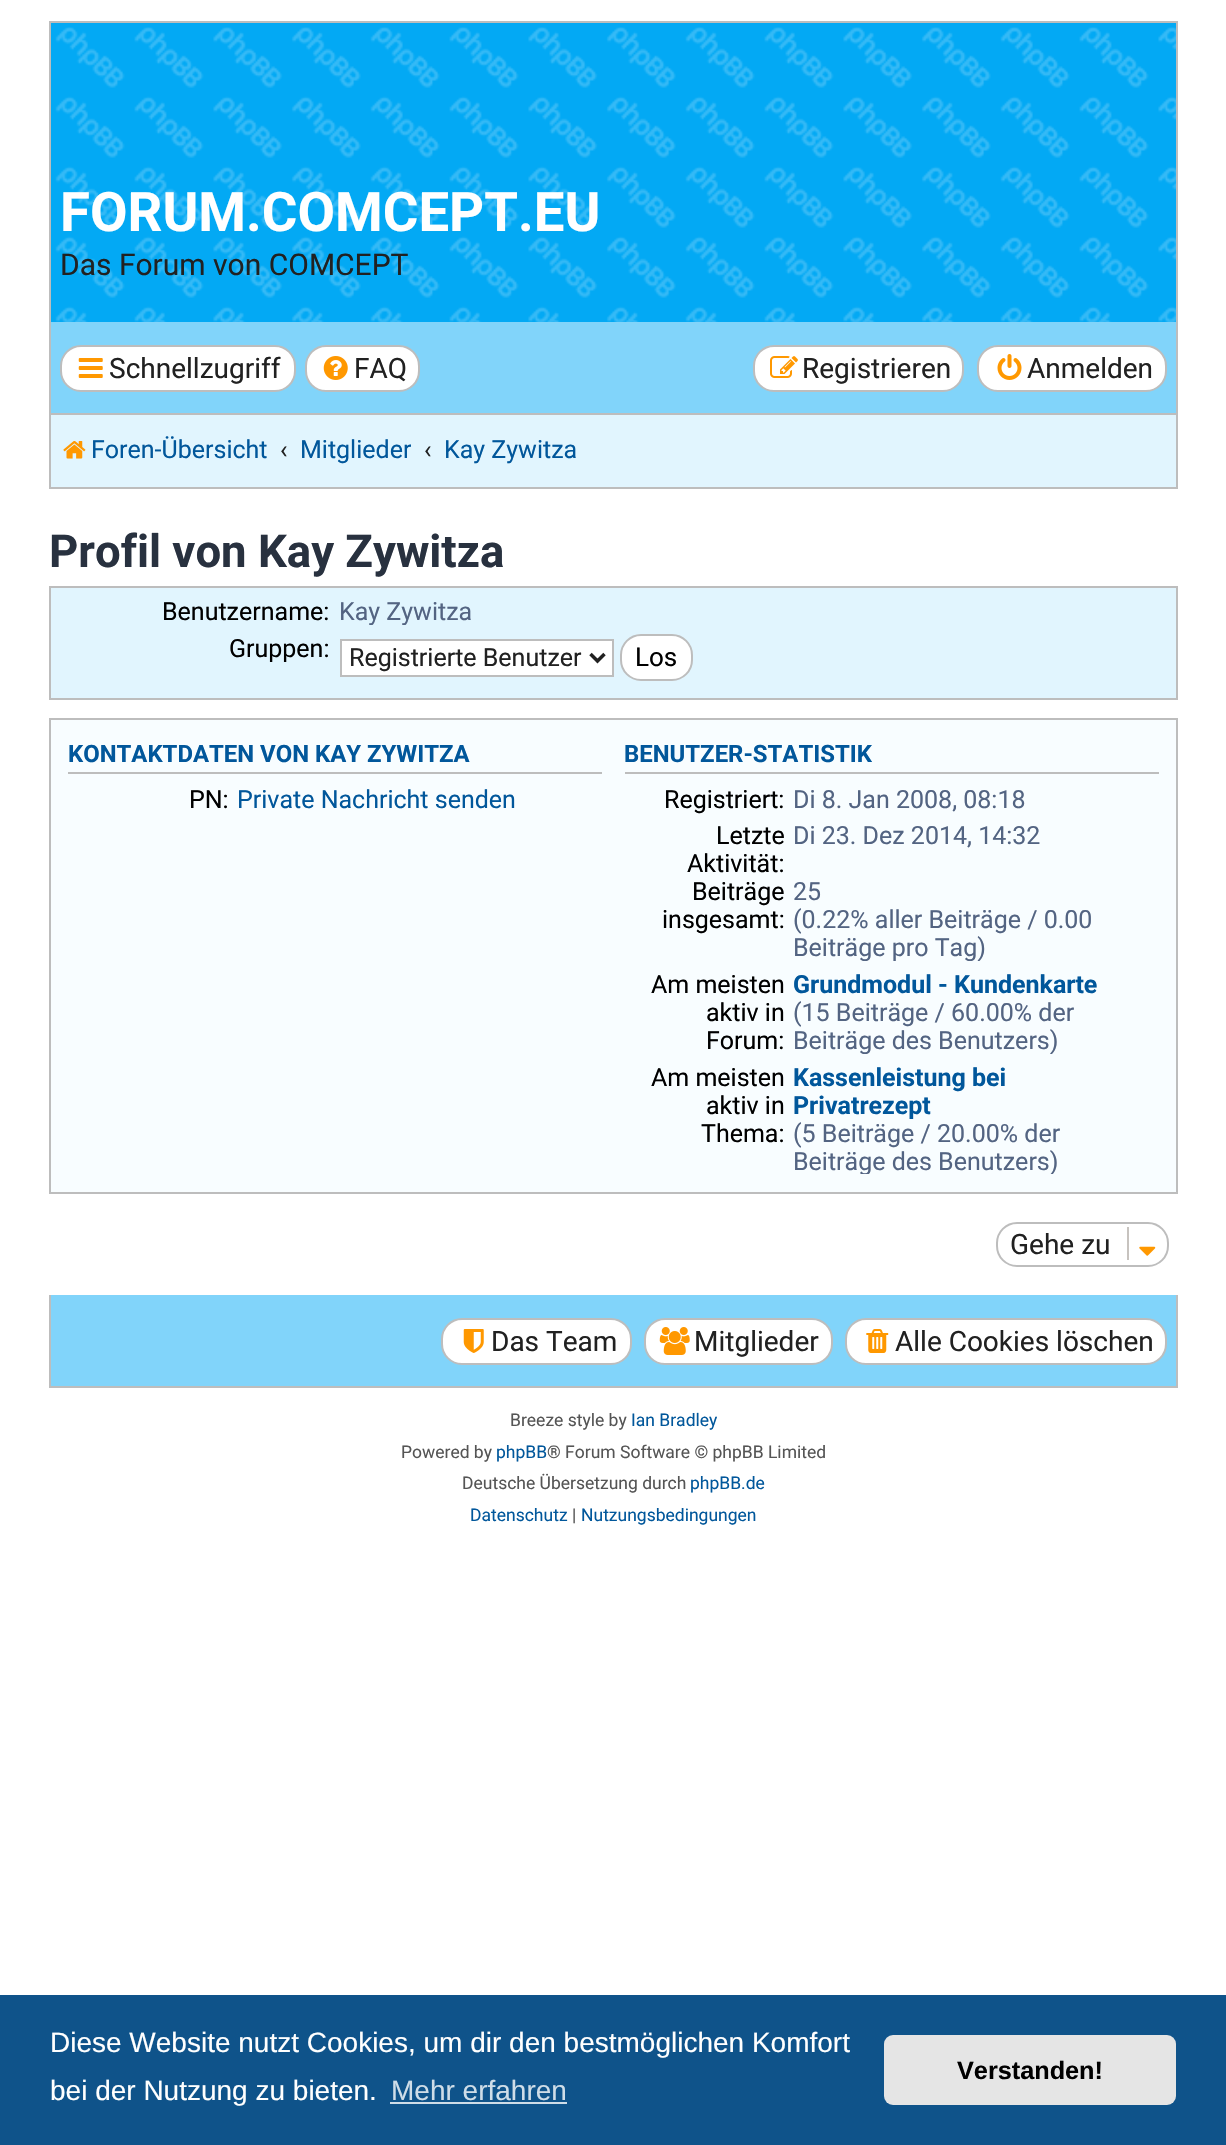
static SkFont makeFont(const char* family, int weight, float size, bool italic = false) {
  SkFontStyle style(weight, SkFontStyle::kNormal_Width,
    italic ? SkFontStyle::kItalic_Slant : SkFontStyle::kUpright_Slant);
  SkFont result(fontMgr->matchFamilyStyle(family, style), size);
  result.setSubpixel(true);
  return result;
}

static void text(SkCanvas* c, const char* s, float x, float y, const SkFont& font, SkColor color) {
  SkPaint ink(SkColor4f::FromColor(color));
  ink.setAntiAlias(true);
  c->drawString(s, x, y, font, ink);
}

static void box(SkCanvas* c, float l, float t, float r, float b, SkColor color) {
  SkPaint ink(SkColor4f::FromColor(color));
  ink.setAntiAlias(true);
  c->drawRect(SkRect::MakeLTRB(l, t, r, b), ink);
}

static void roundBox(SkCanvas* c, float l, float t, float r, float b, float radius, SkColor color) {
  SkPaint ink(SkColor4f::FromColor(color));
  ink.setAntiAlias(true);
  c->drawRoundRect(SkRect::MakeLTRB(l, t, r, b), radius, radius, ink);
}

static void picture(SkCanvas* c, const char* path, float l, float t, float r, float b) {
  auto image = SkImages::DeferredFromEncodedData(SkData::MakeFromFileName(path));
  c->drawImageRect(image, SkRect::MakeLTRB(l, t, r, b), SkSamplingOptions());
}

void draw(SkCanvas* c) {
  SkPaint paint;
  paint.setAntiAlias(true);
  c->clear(0xffffffff);
  box(c, 51, 23, 1176, 322, 0xff03a9f4);
  picture(c, "img_01.png", 55, 27, 1176, 322);
  box(c, 49, 21, 1178, 23, 0xffbdbdbd);
  box(c, 1176, 21, 1178, 488, 0xffbdbdbd);
  box(c, 49, 21, 51, 322, 0xffbdbdbd);
  SkFont face1 = makeFont("Roboto", 700, 54.5f);
  text(c, "FORUM.COMCEPT.EU", 60, 231, face1, 0xffffffff);
  SkFont face2 = makeFont("Roboto", 400, 30);
  text(c, "Das Forum von COMCEPT", 60, 275, face2, 0xff212121);
  box(c, 51, 322, 1176, 413, 0xff81d4fa);
  box(c, 49, 487, 1178, 489, 0xffbdbdbd);
  box(c, 49, 322, 51, 488, 0xffbdbdbd);
  paint.setColor(0xffffffff);
  c->drawRoundRect(SkRect::MakeLTRB(61, 346, 295, 391), 20, 20, paint);
  paint.setStyle(SkPaint::kStroke_Style);
  paint.setStrokeWidth(2);
  paint.setColor(0xffbdbdbd);
  c->drawRoundRect(SkRect::MakeLTRB(61, 346, 295, 391), 20, 20, paint);
  picture(c, "img_02.png", 78, 358, 103, 378);
  SkFont face3 = makeFont("Roboto", 400, 28);
  text(c, "Schnellzugriff", 109, 378, face3, 0xff212121);
  paint.setStyle(SkPaint::kFill_Style);
  paint.setColor(0xffffffff);
  c->drawRoundRect(SkRect::MakeLTRB(306, 346, 419, 391), 20, 20, paint);
  paint.setStyle(SkPaint::kStroke_Style);
  paint.setColor(0xffbdbdbd);
  c->drawRoundRect(SkRect::MakeLTRB(306, 346, 419, 391), 20, 20, paint);
  picture(c, "img_03.png", 323, 356, 348, 380);
  text(c, "FAQ", 354, 378, face3, 0xff212121);
  paint.setStyle(SkPaint::kFill_Style);
  paint.setColor(0xffffffff);
  c->drawRoundRect(SkRect::MakeLTRB(754, 346, 963, 391), 20, 20, paint);
  paint.setStyle(SkPaint::kStroke_Style);
  paint.setColor(0xffbdbdbd);
  c->drawRoundRect(SkRect::MakeLTRB(754, 346, 963, 391), 20, 20, paint);
  picture(c, "img_04.png", 770, 356, 798, 378);
  text(c, "Registrieren", 802, 378, face3, 0xff212121);
  paint.setStyle(SkPaint::kFill_Style);
  paint.setColor(0xffffffff);
  c->drawRoundRect(SkRect::MakeLTRB(978, 346, 1166, 391), 20, 20, paint);
  paint.setStyle(SkPaint::kStroke_Style);
  paint.setColor(0xffbdbdbd);
  c->drawRoundRect(SkRect::MakeLTRB(978, 346, 1166, 391), 20, 20, paint);
  picture(c, "img_05.png", 997, 354, 1022, 380);
  text(c, "Anmelden", 1027, 378, face3, 0xff212121);
  box(c, 51, 415, 1176, 487, 0xffe1f5fe);
  box(c, 51, 413, 1176, 415, 0xffbdbdbd);
  picture(c, "img_06.png", 63, 441, 86, 459);
  SkFont face4 = makeFont("Roboto", 400, 25);
  text(c, "Foren-Übersicht", 91, 458, face4, 0xff01579b);
  text(c, "‹", 280, 458, face4, 0xff212121);
  c->save();
  c->clipRect(SkRect::MakeLTRB(301, 424, 411, 478));
  text(c, "Mitglieder", 300, 458, face4, 0xff01579b);
  c->restore();
  text(c, "‹", 424, 458, face4, 0xff212121);
  text(c, "Kay Zywitza", 444, 458, face4, 0xff01579b);
  SkFont face5 = makeFont("Roboto", 700, 45.5f);
  text(c, "Profil von Kay Zywitza", 49, 567, face5, 0xff28313f);
  paint.setStyle(SkPaint::kFill_Style);
  paint.setColor(0xffe1f5fe);
  c->drawRect(SkRect::MakeLTRB(50, 587, 1177, 699), paint);
  paint.setStyle(SkPaint::kStroke_Style);
  paint.setColor(0xffbdbdbd);
  c->drawRect(SkRect::MakeLTRB(50, 587, 1177, 699), paint);
  text(c, "Benutzername:", 162, 620, face4, 0xff000000);
  c->save();
  c->clipRect(SkRect::MakeLTRB(331, 597, 905, 625));
  text(c, "Kay Zywitza", 339, 620, face4, 0xff536482);
  c->restore();
  text(c, "Gruppen:", 229, 657, face4, 0xff000000);
  paint.setStyle(SkPaint::kFill_Style);
  paint.setColor(0xffffffff);
  c->drawRect(SkRect::MakeLTRB(341, 640, 613, 676), paint);
  paint.setStyle(SkPaint::kStroke_Style);
  paint.setColor(0xffbdbdbd);
  c->drawRect(SkRect::MakeLTRB(341, 640, 613, 676), paint);
  paint.setStrokeWidth(3.5f);
  paint.setColor(0xff212121);
  c->drawPath(SkPathBuilder().moveTo(590.5f, 654).lineTo(597.5f, 661).lineTo(604.5f, 654).detach(), paint);
  text(c, "Registrierte Benutzer", 349, 666, face4, 0xff212121);
  paint.setStyle(SkPaint::kFill_Style);
  paint.setColor(0xffffffff);
  c->drawRoundRect(SkRect::MakeLTRB(621, 635, 692, 680), 20, 20, paint);
  paint.setStyle(SkPaint::kStroke_Style);
  paint.setStrokeWidth(2);
  paint.setColor(0xffbdbdbd);
  c->drawRoundRect(SkRect::MakeLTRB(621, 635, 692, 680), 20, 20, paint);
  SkFont face6 = makeFont("Roboto", 400, 26);
  text(c, "Los", 635, 666, face6, 0xff000000);
  paint.setStyle(SkPaint::kFill_Style);
  paint.setColor(0xfff8fdff);
  c->drawRect(SkRect::MakeLTRB(50, 719, 1177, 1193), paint);
  paint.setStyle(SkPaint::kStroke_Style);
  paint.setColor(0xffbdbdbd);
  c->drawRect(SkRect::MakeLTRB(50, 719, 1177, 1193), paint);
  box(c, 68, 772, 602, 774, 0xffbdbdbd);
  SkFont face7 = makeFont("Roboto", 700, 23.9f);
  text(c, "KONTAKTDATEN VON KAY ZYWITZA", 68, 762, face7, 0xff01579b);
  text(c, "PN:", 189, 808, face4, 0xff000000);
  text(c, "Private Nachricht senden", 237, 808, face4, 0xff01579b);
  box(c, 625, 772, 1159, 774, 0xffbdbdbd);
  text(c, "BENUTZER-STATISTIK", 624, 762, face7, 0xff01579b);
  text(c, "Registriert:", 664, 808, face4, 0xff000000);
  text(c, "Di 8. Jan 2008, 08:18", 793, 808, face4, 0xff536482);
  text(c, "Letzte", 716, 844, face4, 0xff000000);
  text(c, "Aktivität:", 687, 872, face4, 0xff000000);
  text(c, "Di 23. Dez 2014, 14:32", 793, 844, face4, 0xff536482);
  text(c, "Beiträge", 692, 900, face4, 0xff000000);
  text(c, "insgesamt:", 662, 928, face4, 0xff000000);
  text(c, "25", 793, 900, face4, 0xff536482);
  text(c, "(0.22% aller Beiträge / 0.00", 793, 928, face4, 0xff536482);
  c->save();
  c->clipRect(SkRect::MakeLTRB(784, 877, 1141, 961));
  text(c, "Beiträge pro Tag)", 793, 956, face4, 0xff536482);
  c->restore();
  text(c, "Am meisten", 651, 993, face4, 0xff000000);
  text(c, "aktiv in", 706, 1021, face4, 0xff000000);
  text(c, "Forum:", 706, 1049, face4, 0xff000000);
  SkFont face8 = makeFont("Roboto", 700, 25);
  text(c, "Grundmodul - Kundenkarte", 793, 993, face8, 0xff01579b);
  text(c, "(15 Beiträge / 60.00% der", 793, 1021, face4, 0xff536482);
  c->save();
  c->clipRect(SkRect::MakeLTRB(784, 970, 1141, 1054));
  text(c, "Beiträge des Benutzers)", 793, 1049, face4, 0xff536482);
  c->restore();
  text(c, "Am meisten", 651, 1086, face4, 0xff000000);
  text(c, "aktiv in", 706, 1114, face4, 0xff000000);
  text(c, "Thema:", 701, 1142, face4, 0xff000000);
  text(c, "Kassenleistung bei", 793, 1086, face8, 0xff01579b);
  text(c, "Privatrezept", 793, 1114, face8, 0xff01579b);
  text(c, "(5 Beiträge / 20.00% der", 793, 1142, face4, 0xff536482);
  c->save();
  c->clipRect(SkRect::MakeLTRB(784, 1062, 1141, 1174));
  text(c, "Beiträge des Benutzers)", 793, 1170, face4, 0xff536482);
  c->restore();
  c->drawRoundRect(SkRect::MakeLTRB(997, 1223, 1168, 1266), 20, 20, paint);
  text(c, "Gehe zu", 1010, 1254, face3, 0xff212121);
  box(c, 1127, 1227, 1129, 1260, 0xffc7c3bf);
  picture(c, "img_07.png", 1139, 1246, 1156, 1256);
  box(c, 51, 1295, 1176, 1386, 0xff81d4fa);
  box(c, 1176, 1295, 1178, 1388, 0xffbdbdbd);
  box(c, 49, 1386, 1178, 1388, 0xffbdbdbd);
  box(c, 49, 1295, 51, 1388, 0xffbdbdbd);
  paint.setStyle(SkPaint::kFill_Style);
  paint.setColor(0xffffffff);
  c->drawRoundRect(SkRect::MakeLTRB(442, 1319, 631, 1364), 20, 20, paint);
  paint.setStyle(SkPaint::kStroke_Style);
  paint.setColor(0xffbdbdbd);
  c->drawRoundRect(SkRect::MakeLTRB(442, 1319, 631, 1364), 20, 20, paint);
  picture(c, "img_08.png", 463, 1329, 484, 1353);
  text(c, "Das Team", 491, 1351, face3, 0xff212121);
  paint.setStyle(SkPaint::kFill_Style);
  paint.setColor(0xffffffff);
  c->drawRoundRect(SkRect::MakeLTRB(645, 1319, 832, 1364), 20, 20, paint);
  paint.setStyle(SkPaint::kStroke_Style);
  paint.setColor(0xffbdbdbd);
  c->drawRoundRect(SkRect::MakeLTRB(645, 1319, 832, 1364), 20, 20, paint);
  picture(c, "img_09.png", 659, 1327, 690, 1355);
  text(c, "Mitglieder", 694, 1351, face3, 0xff212121);
  paint.setStyle(SkPaint::kFill_Style);
  paint.setColor(0xffffffff);
  c->drawRoundRect(SkRect::MakeLTRB(846, 1319, 1166, 1364), 20, 20, paint);
  paint.setStyle(SkPaint::kStroke_Style);
  paint.setColor(0xffbdbdbd);
  c->drawRoundRect(SkRect::MakeLTRB(846, 1319, 1166, 1364), 20, 20, paint);
  picture(c, "img_10.png", 866, 1329, 889, 1353);
  text(c, "Alle Cookies löschen", 895, 1351, face3, 0xff212121);
  SkFont face9 = makeFont("Roboto", 400, 17.5f);
  text(c, "Breeze style by", 510, 1426, face9, 0xff555555);
  text(c, "Ian Bradley", 631, 1426, face9, 0xff01579b);
  text(c, "Powered by", 401, 1458, face9, 0xff555555);
  text(c, "phpBB", 496, 1458, face9, 0xff01579b);
  text(c, "® Forum Software © phpBB Limited", 547, 1458, face9, 0xff555555);
  text(c, "Deutsche Übersetzung durch", 462, 1489, face9, 0xff555555);
  text(c, "phpBB.de", 690, 1489, face9, 0xff01579b);
  text(c, "Datenschutz", 470, 1521, face9, 0xff01579b);
  text(c, "|", 572, 1521, face9, 0xff555555);
  text(c, "Nutzungsbedingungen", 581, 1521, face9, 0xff01579b);
  box(c, 0, 1995, 1226, 2145, 0xff0f538a);
  SkFont face10 = makeFont("Liberation Sans", 400, 28);
  text(c, "Diese Website nutzt Cookies, um dir den bestmöglichen Komfort", 50, 2052, face10, 0xffffffff);
  text(c, "bei der Nutzung zu bieten.", 50, 2100, face10, 0xffffffff);
  text(c, "Mehr erfahren", 391, 2100, face10, 0xffcfdde8);
  box(c, 390, 2102, 567, 2104, 0xffcfdde8);
  roundBox(c, 884, 2035, 1176, 2105, 9, 0xffe5e5e5);
  SkFont face11 = makeFont("Liberation Sans", 700, 25.25f);
  text(c, "Verstanden!", 957, 2079, face11, 0xff000000);
}
